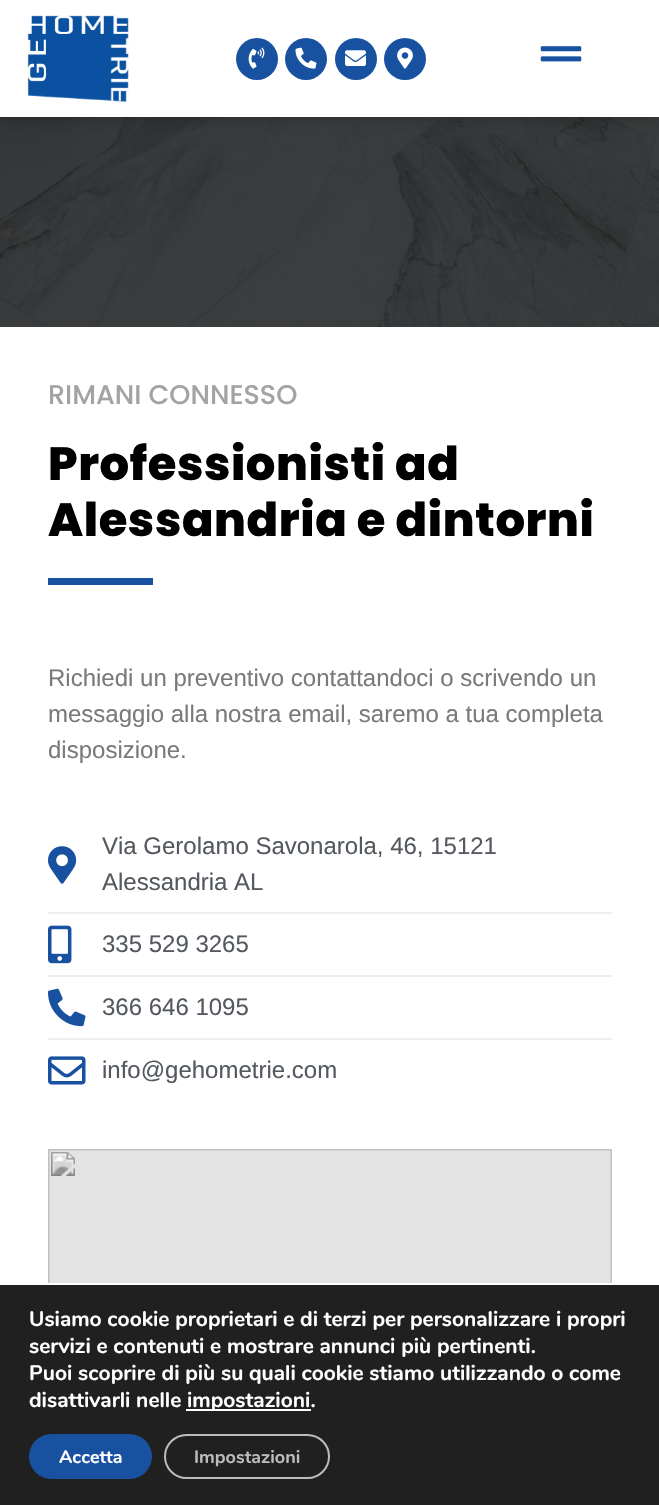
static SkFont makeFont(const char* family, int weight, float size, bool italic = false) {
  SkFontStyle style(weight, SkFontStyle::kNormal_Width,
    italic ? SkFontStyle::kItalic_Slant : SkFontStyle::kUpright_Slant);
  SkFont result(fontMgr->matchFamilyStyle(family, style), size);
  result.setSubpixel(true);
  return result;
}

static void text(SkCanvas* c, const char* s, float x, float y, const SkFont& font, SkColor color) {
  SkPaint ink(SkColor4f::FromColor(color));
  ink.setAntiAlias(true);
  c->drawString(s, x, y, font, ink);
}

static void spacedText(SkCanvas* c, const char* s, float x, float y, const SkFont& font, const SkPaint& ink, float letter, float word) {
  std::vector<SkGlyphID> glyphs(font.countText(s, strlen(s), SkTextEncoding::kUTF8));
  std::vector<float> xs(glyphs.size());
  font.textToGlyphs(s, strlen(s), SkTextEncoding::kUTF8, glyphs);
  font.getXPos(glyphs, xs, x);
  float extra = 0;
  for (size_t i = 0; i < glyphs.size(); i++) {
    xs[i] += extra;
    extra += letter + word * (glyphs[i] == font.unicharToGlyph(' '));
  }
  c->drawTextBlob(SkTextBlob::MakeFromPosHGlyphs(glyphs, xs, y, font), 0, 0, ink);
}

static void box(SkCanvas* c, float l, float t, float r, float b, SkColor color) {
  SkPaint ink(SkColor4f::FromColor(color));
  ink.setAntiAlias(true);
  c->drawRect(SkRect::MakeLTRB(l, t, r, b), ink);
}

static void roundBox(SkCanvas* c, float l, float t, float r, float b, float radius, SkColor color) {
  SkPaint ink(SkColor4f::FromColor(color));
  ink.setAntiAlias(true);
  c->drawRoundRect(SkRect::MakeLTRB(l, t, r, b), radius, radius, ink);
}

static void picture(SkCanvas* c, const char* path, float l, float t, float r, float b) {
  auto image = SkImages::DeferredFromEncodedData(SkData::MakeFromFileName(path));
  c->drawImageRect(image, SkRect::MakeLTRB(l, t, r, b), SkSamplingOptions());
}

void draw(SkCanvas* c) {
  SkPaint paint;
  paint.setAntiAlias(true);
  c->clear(0xffffffff);
  picture(c, "img_07.png", 0, 117, 659, 327);
  paint.setColor(0x3b000000);
  paint.setMaskFilter(SkMaskFilter::MakeBlur(kNormal_SkBlurStyle, 7.5f));
  c->drawRect(SkRect::MakeLTRB(0, 0, 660, 117), paint);
  paint.setMaskFilter(nullptr);
  box(c, 0, 0, 659, 117, 0xffffffff);
  picture(c, "img_01.png", 27, 15, 129, 102);
  paint.setColor(0xff1951a1);
  c->drawCircle(257, 59, 21, paint);
  picture(c, "img_02.png", 248, 47, 265, 69);
  c->drawCircle(306, 59, 21, paint);
  picture(c, "img_03.png", 295, 47, 317, 69);
  c->drawCircle(356, 59, 21, paint);
  picture(c, "img_04.png", 345, 50, 366, 66);
  c->drawCircle(405, 59, 21, paint);
  picture(c, "img_05.png", 397, 47, 413, 69);
  picture(c, "img_06.png", 540, 46, 582, 62);
  SkFont face1 = makeFont("Poppins", 500, 27);
  text(c, "RIMANI CONNESSO", 48, 404, face1, 0xffa3a3a3);
  SkFont face2 = makeFont("Poppins", 800, 46.5f);
  paint.setColor(0xff000000);
  spacedText(c, "Professionisti ad", 48, 480, face2, paint, 0.6f, 0);
  spacedText(c, "Alessandria e dintorni", 48, 536, face2, paint, 0.6f, 0);
  box(c, 48, 578, 153, 585, 0xff1951a1);
  SkFont face3 = makeFont("Liberation Sans", 400, 24);
  text(c, "Richiedi un preventivo contattandoci o scrivendo un", 48, 686, face3, 0xff7a7a7a);
  text(c, "messaggio alla nostra email, saremo a tua completa", 48, 722, face3, 0xff7a7a7a);
  text(c, "disposizione.", 48, 758, face3, 0xff7a7a7a);
  picture(c, "img_08.png", 48, 846, 77, 884);
  text(c, "Via Gerolamo Savonarola, 46, 15121", 102, 854, face3, 0xff54595f);
  text(c, "Alessandria AL", 102, 890, face3, 0xff54595f);
  box(c, 48, 912, 612, 914, 0xffeeeeee);
  picture(c, "img_09.png", 48, 925, 72, 964);
  text(c, "335 529 3265", 102, 952, face3, 0xff54595f);
  box(c, 48, 975, 612, 977, 0xffeeeeee);
  picture(c, "img_10.png", 48, 988, 86, 1027);
  text(c, "366 646 1095", 102, 1015, face3, 0xff54595f);
  box(c, 48, 1038, 612, 1040, 0xffeeeeee);
  picture(c, "img_11.png", 48, 1056, 86, 1085);
  text(c, "info@gehometrie.com", 102, 1078, face3, 0xff54595f);
  picture(c, "img_12.png", 48, 1149, 612, 1283);
  box(c, 0, 1285, 659, 1505, 0xff202020);
  SkFont face4 = makeFont("Nunito", 700, 21);
  text(c, "Usiamo cookie proprietari e di terzi per personalizzare i propri", 29, 1326, face4, 0xffffffff);
  text(c, "servizi e contenuti e mostrare annunci più pertinenti.", 29, 1353, face4, 0xffffffff);
  text(c, "Puoi scoprire di più su quali cookie stiamo utilizzando o come", 29, 1380, face4, 0xffffffff);
  text(c, "disattivarli nelle", 29, 1407, face4, 0xffffffff);
  box(c, 186, 1409, 311, 1411, 0xffffffff);
  text(c, "impostazioni.", 187, 1407, face4, 0xffffffff);
  roundBox(c, 29, 1434, 152, 1479, 22.5f, 0xff1951a1);
  SkFont face5 = makeFont("Nunito", 700, 18);
  text(c, "Accetta", 59, 1463, face5, 0xffffffff);
  paint.setStyle(SkPaint::kStroke_Style);
  paint.setStrokeWidth(2);
  paint.setColor(0xffbcbcbc);
  c->drawRoundRect(SkRect::MakeLTRB(165, 1435, 329, 1478), 21.5f, 21.5f, paint);
  text(c, "Impostazioni", 194, 1463, face5, 0xffbcbcbc);
}
